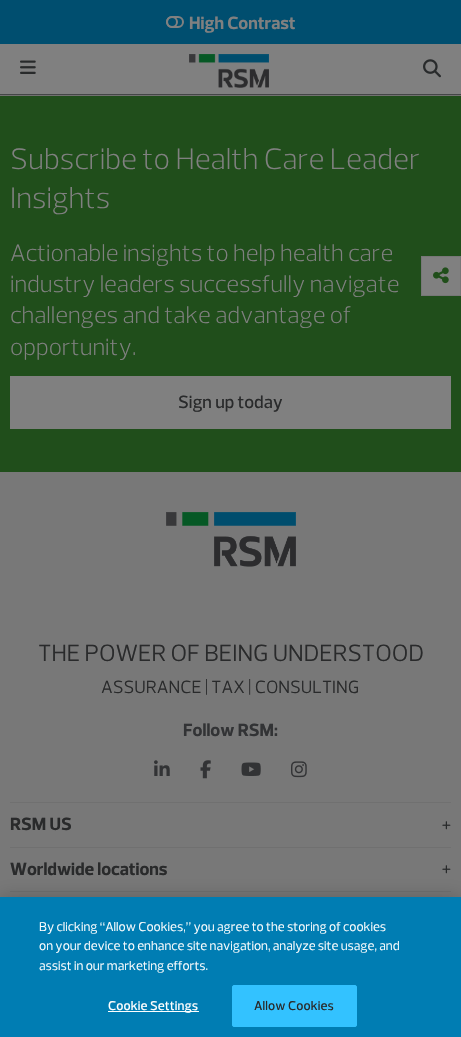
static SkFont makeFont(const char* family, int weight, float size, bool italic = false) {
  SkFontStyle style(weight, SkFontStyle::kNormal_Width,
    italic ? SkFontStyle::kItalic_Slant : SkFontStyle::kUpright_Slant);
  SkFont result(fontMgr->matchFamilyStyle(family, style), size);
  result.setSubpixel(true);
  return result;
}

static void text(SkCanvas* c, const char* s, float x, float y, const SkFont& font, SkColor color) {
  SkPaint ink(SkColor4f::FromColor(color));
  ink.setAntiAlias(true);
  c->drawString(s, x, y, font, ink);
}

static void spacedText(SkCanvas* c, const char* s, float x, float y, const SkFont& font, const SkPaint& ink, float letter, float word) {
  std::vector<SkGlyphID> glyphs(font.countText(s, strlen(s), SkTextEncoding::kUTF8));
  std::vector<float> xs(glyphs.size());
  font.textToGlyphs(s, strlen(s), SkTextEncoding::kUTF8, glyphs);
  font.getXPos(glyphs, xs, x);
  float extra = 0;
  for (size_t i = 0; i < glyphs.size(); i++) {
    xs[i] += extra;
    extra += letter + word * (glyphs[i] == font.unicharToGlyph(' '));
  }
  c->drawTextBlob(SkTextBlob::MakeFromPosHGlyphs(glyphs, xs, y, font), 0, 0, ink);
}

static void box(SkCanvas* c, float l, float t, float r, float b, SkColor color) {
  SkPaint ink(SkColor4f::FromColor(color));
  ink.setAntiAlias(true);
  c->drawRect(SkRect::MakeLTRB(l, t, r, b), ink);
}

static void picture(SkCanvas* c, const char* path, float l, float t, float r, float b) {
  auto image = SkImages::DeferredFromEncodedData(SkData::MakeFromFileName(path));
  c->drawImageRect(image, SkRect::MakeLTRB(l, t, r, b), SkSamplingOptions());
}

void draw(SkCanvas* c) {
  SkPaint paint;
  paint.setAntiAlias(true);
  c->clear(0xff204e1b);
  box(c, 0, 95, 461, 96, 0xff717170);
  box(c, 0, 0, 461, 44, 0xff004e6f);
  paint.setStyle(SkPaint::kStroke_Style);
  paint.setStrokeWidth(2);
  paint.setColor(0xff808080);
  c->drawRoundRect(SkRect::MakeLTRB(167, 17, 183, 27), 5, 5, paint);
  c->drawCircle(172, 22, 5, paint);
  SkFont face1 = makeFont("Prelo", 700, 18);
  text(c, "High Contrast", 189, 29, face1, 0xff808080);
  box(c, 0, 44, 461, 94, 0xff808080);
  box(c, 0, 94, 461, 95, 0xff444647);
  picture(c, "img_01.png", 20, 60, 36, 74);
  picture(c, "img_02.png", 189, 54, 269, 88);
  picture(c, "img_03.png", 423, 59, 441, 78);
  SkFont face2 = makeFont("Prelo", 300, 30);
  text(c, "Subscribe to Health Care Leader", 10, 169, face2, 0xff808080);
  text(c, "Insights", 10, 208, face2, 0xff808080);
  SkFont face3 = makeFont("Prelo", 300, 24);
  text(c, "Actionable insights to help health care", 10, 261, face3, 0xff808080);
  text(c, "industry leaders successfully navigate", 10, 292, face3, 0xff808080);
  text(c, "challenges and take advantage of", 10, 323, face3, 0xff808080);
  text(c, "opportunity.", 10, 355, face3, 0xff808080);
  box(c, 10, 376, 451, 429, 0xff808080);
  SkFont face4 = makeFont("Prelo", 500, 18);
  text(c, "Sign up today", 178, 408, face4, 0xff292a2b);
  paint.setStyle(SkPaint::kFill_Style);
  c->drawRect(SkRect::MakeLTRB(421.5f, 256.5f, 460.5f, 295.5f), paint);
  paint.setStyle(SkPaint::kStroke_Style);
  paint.setStrokeWidth(1);
  paint.setColor(0xff777777);
  c->drawRect(SkRect::MakeLTRB(421.5f, 256.5f, 460.5f, 295.5f), paint);
  picture(c, "img_04.png", 433, 267, 449, 284);
  box(c, 0, 472, 461, 897, 0xff787878);
  picture(c, "img_05.png", 166, 512, 296, 567);
  SkFont face5 = makeFont("Prelo", 400, 24);
  text(c, "THE POWER OF BEING UNDERSTOOD", 38, 661, face5, 0xff292a2b);
  SkFont face6 = makeFont("Prelo", 400, 18);
  text(c, "ASSURANCE | TAX | CONSULTING", 101, 693, face6, 0xff292a2b);
  text(c, "Follow RSM:", 183, 736, face1, 0xff323335);
  picture(c, "img_06.png", 154, 760, 170, 776);
  picture(c, "img_07.png", 200, 760, 211, 779);
  picture(c, "img_08.png", 241, 762, 261, 776);
  picture(c, "img_09.png", 291, 761, 307, 778);
  box(c, 10, 802, 451, 803, 0xff707070);
  box(c, 10, 847, 451, 848, 0xff707070);
  text(c, "RSM US", 10, 830, face1, 0xff292a2b);
  picture(c, "img_10.png", 442, 821, 451, 830);
  box(c, 10, 891, 451, 892, 0xff707070);
  text(c, "Worldwide locations", 10, 875, face1, 0xff292a2b);
  picture(c, "img_10.png", 442, 865, 451, 874);
  paint.setStyle(SkPaint::kFill_Style);
  paint.setColor(0x33000000);
  paint.setMaskFilter(SkMaskFilter::MakeBlur(kNormal_SkBlurStyle, 9));
  c->drawRect(SkRect::MakeLTRB(0, 897, 461, 1037), paint);
  paint.setMaskFilter(nullptr);
  box(c, 0, 897, 461, 1037, 0xff007db3);
  SkFont face7 = makeFont("Prelo", 400, 13);
  text(c, "By clicking “Allow Cookies,” you agree to the storing of cookies", 39, 931, face7, 0xffffffff);
  text(c, "on your device to enhance site navigation, analyze site usage, and", 39, 950, face7, 0xffffffff);
  text(c, "assist in our marketing efforts.", 39, 970, face7, 0xffffffff);
  box(c, 108, 1011, 199, 1012, 0xffffffff);
  SkFont face8 = makeFont("Prelo", 500, 13);
  paint.setColor(0xffffffff);
  spacedText(c, "Cookie Settings", 108, 1010, face8, paint, 0.1f, 0);
  paint.setColor(0xff33c2ff);
  c->drawRoundRect(SkRect::MakeLTRB(232.5f, 985.5f, 356.5f, 1026.5f), 1.5f, 1.5f, paint);
  paint.setStyle(SkPaint::kStroke_Style);
  c->drawRoundRect(SkRect::MakeLTRB(232.5f, 985.5f, 356.5f, 1026.5f), 1.5f, 1.5f, paint);
  paint.setStyle(SkPaint::kFill_Style);
  paint.setColor(0xff292a2b);
  spacedText(c, "Allow Cookies", 254, 1010, face8, paint, 0.1f, 0);
}
